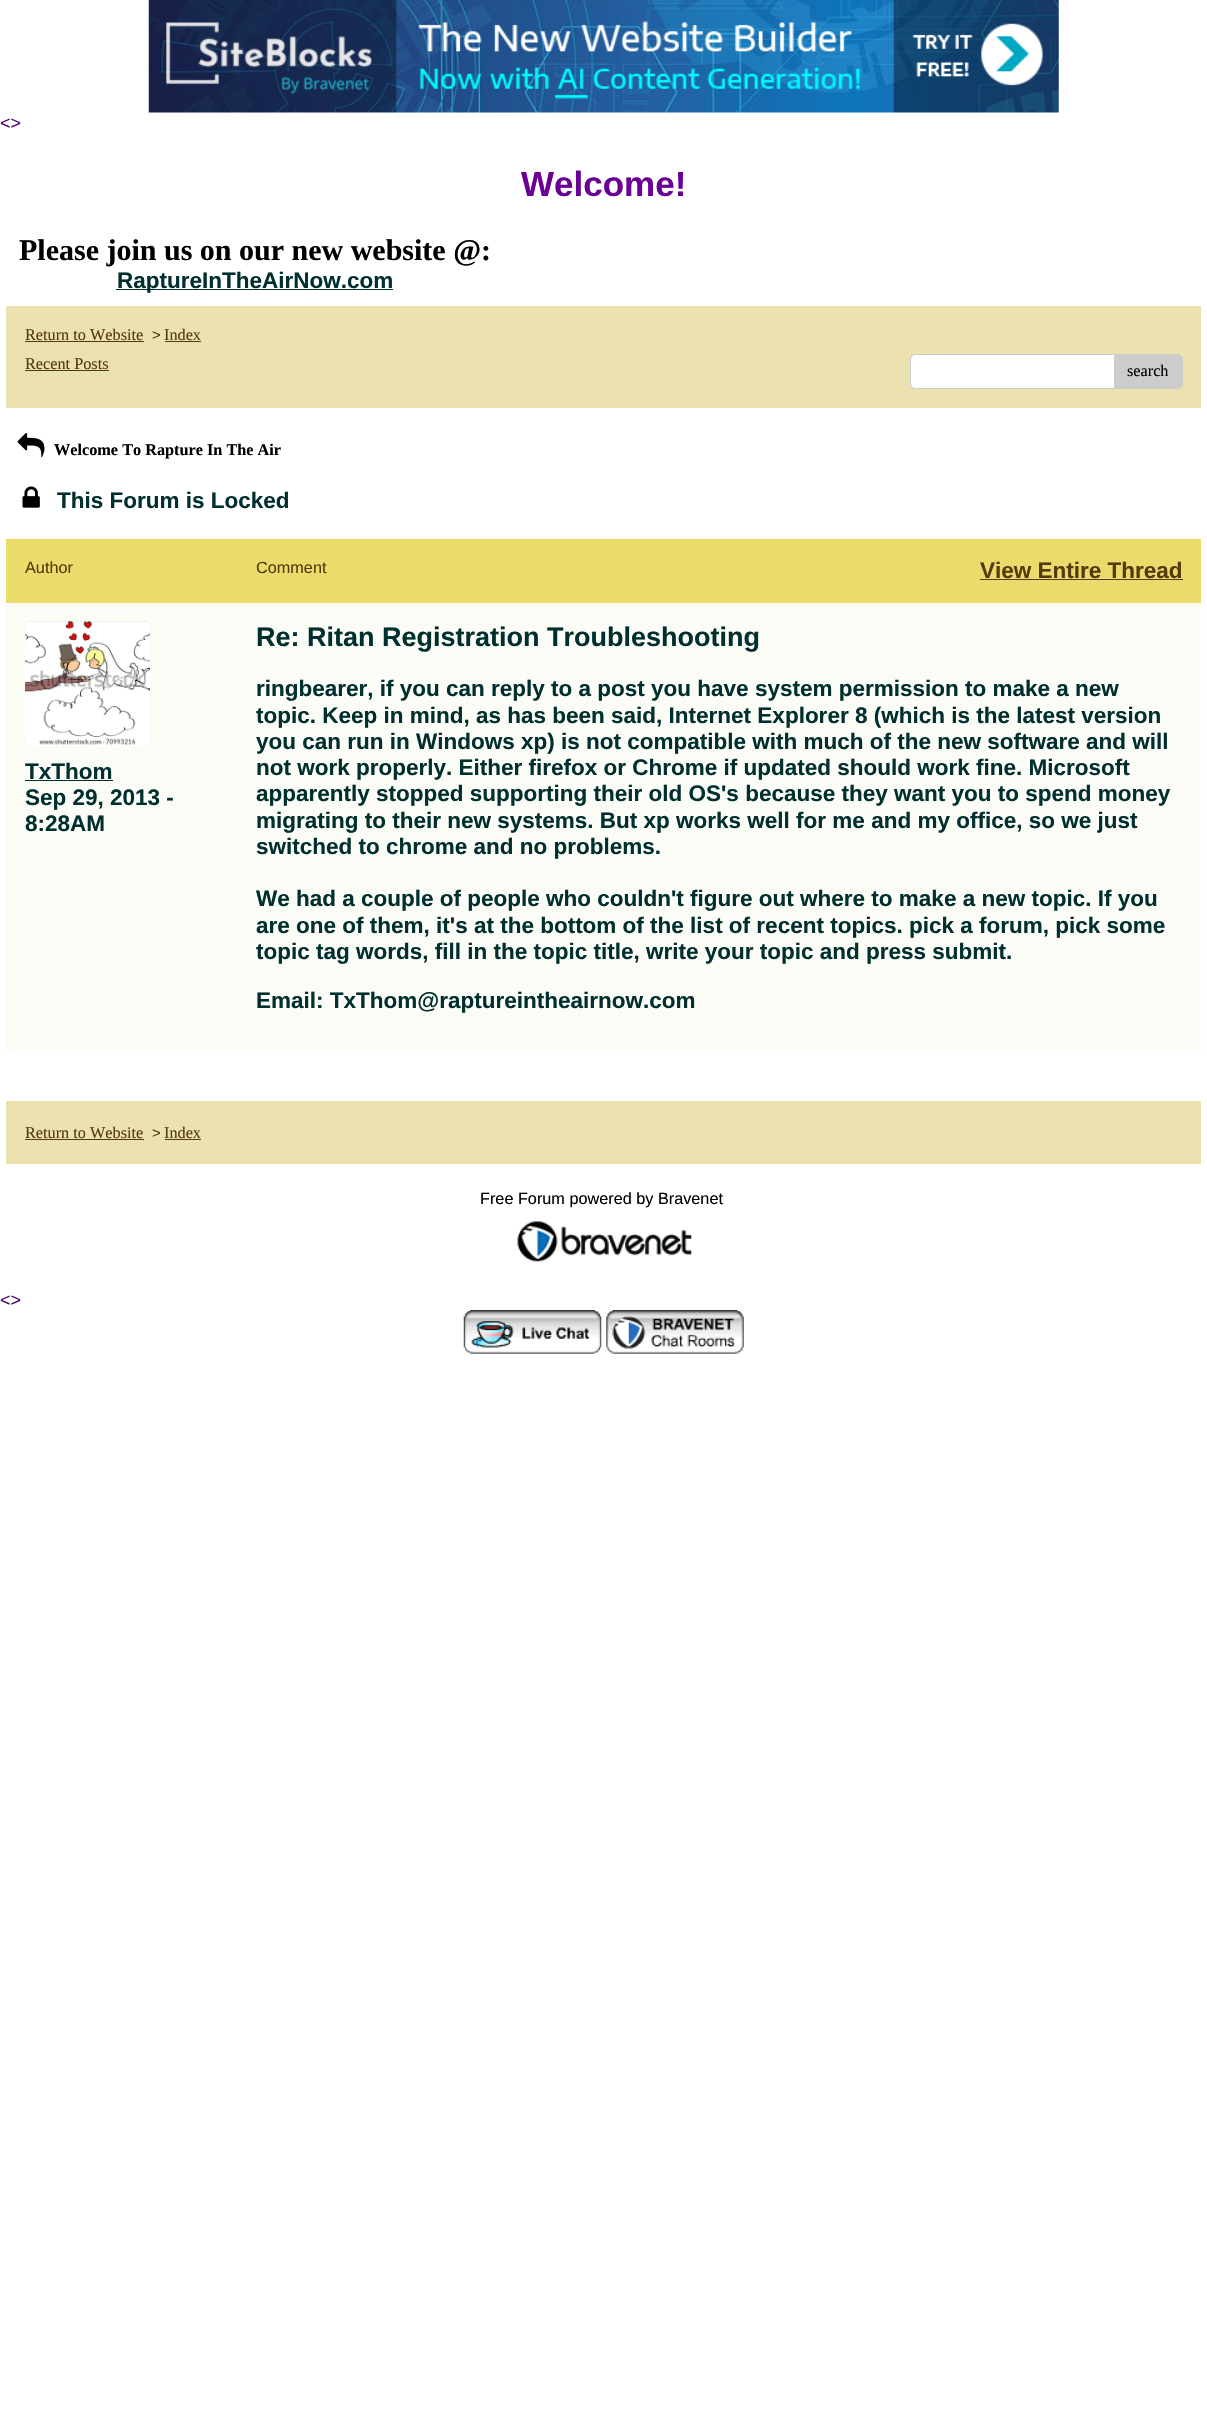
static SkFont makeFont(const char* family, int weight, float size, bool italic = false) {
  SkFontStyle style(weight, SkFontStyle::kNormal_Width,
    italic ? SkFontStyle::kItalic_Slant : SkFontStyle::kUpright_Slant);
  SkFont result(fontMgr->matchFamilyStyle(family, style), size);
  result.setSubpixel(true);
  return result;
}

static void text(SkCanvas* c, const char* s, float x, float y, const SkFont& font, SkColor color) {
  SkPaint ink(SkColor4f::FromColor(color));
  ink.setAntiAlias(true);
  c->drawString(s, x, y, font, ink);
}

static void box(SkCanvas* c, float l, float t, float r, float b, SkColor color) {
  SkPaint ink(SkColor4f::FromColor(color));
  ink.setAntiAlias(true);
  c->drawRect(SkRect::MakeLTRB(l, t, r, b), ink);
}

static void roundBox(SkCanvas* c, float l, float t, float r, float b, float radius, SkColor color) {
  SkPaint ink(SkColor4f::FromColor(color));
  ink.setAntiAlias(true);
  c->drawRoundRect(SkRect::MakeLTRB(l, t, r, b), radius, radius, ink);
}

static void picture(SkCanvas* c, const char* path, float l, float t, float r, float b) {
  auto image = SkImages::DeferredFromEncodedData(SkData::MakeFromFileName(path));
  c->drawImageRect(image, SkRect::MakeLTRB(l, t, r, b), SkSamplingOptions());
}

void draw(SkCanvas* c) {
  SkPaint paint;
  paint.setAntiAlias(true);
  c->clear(0xffffffff);
  picture(c, "img_01.png", 148, 0, 1059, 113);
  SkFont face1 = makeFont("Liberation Sans", 400, 18);
  text(c, "<>", 0, 129, face1, 0xff530770);
  SkFont face2 = makeFont("Liberation Sans", 700, 35);
  text(c, "Welcome!", 521, 196, face2, 0xff6b0094);
  SkFont face3 = makeFont("Liberation Serif", 700, 30);
  text(c, "Please join us on our new website @:", 19, 260, face3, 0xff000000);
  box(c, 116, 289, 393, 290, 0xff002f2f);
  SkFont face4 = makeFont("Liberation Sans", 700, 22.5f);
  text(c, "RaptureInTheAirNow.com", 117, 288, face4, 0xff002f2f);
  box(c, 6, 306, 1201, 408, 0xffebe2af);
  SkFont face5 = makeFont("Liberation Serif", 400, 16.25f);
  text(c, "Return to Website", 25, 340, face5, 0xff563a0f);
  box(c, 25, 341, 144, 342, 0xff563a0f);
  SkFont face6 = makeFont("Liberation Sans", 400, 15);
  text(c, ">", 152, 340, face6, 0xff563a0f);
  text(c, "Index", 164, 340, face5, 0xff563a0f);
  box(c, 165, 341, 201, 342, 0xff563a0f);
  text(c, "Recent Posts", 25, 369, face5, 0xff563a0f);
  box(c, 25, 370, 109, 371, 0xff563a0f);
  roundBox(c, 910, 354, 1170, 389, 5, 0xffffffff);
  paint.setColor(0xffcccccc);
  c->drawPath(SkPathBuilder(SkPathFillType::kEvenOdd).moveTo(915, 354).lineTo(1165, 354).cubicTo(1168, 354, 1170, 356, 1170, 359).lineTo(1170, 384).cubicTo(1170, 387, 1168, 389, 1165, 389).lineTo(915, 389).cubicTo(912, 389, 910, 387, 910, 384).lineTo(910, 359).cubicTo(910, 356, 912, 354, 915, 354).close().moveTo(915, 355).lineTo(1165, 355).cubicTo(1168, 355, 1170, 357, 1170, 359).lineTo(1170, 384).cubicTo(1170, 386, 1168, 388, 1165, 388).lineTo(915, 388).cubicTo(913, 388, 911, 386, 911, 384).lineTo(911, 359).cubicTo(911, 357, 913, 355, 915, 355).close().detach(), paint);
  c->drawPath(SkPathBuilder().moveTo(1114.5f, 354.5f).lineTo(1178, 354.5f).cubicTo(1180.5f, 354.5f, 1182.5f, 356.5f, 1182.5f, 359).lineTo(1182.5f, 384).cubicTo(1182.5f, 386.5f, 1180.5f, 388.5f, 1178, 388.5f).lineTo(1114.5f, 388.5f).close().detach(), paint);
  paint.setStyle(SkPaint::kStroke_Style);
  paint.setStrokeWidth(1);
  c->drawPath(SkPathBuilder().moveTo(1114.5f, 354.5f).lineTo(1178, 354.5f).cubicTo(1180.5f, 354.5f, 1182.5f, 356.5f, 1182.5f, 359).lineTo(1182.5f, 384).cubicTo(1182.5f, 386.5f, 1180.5f, 388.5f, 1178, 388.5f).lineTo(1114.5f, 388.5f).close().detach(), paint);
  text(c, "search", 1127, 376, face5, 0xff000000);
  picture(c, "img_02.png", 17, 433, 45, 458);
  SkFont face7 = makeFont("Liberation Serif", 700, 16.25f);
  text(c, "Welcome To Rapture In The Air", 54, 455, face7, 0xff000000);
  picture(c, "img_03.png", 22, 486, 40, 508);
  text(c, "This Forum is Locked", 57, 508, face4, 0xff002f2f);
  box(c, 6, 539, 1201, 603, 0xffe9dc6a);
  SkFont face8 = makeFont("Liberation Sans", 400, 16.25f);
  text(c, "Author", 25, 573, face8, 0xff563a0f);
  text(c, "Comment", 256, 573, face8, 0xff563a0f);
  text(c, "View Entire Thread", 980, 578, face4, 0xff563a0f);
  box(c, 980, 579, 1183, 580, 0xff563a0f);
  box(c, 6, 603, 1201, 1051, 0xfffcfcf6);
  roundBox(c, 25, 621, 150, 746, 5, 0xffd6ddd8);
  picture(c, "img_04.png", 25, 621, 150, 746);
  text(c, "TxThom", 25, 779, face4, 0xff002f2f);
  box(c, 25, 780, 113, 781, 0xff002f2f);
  text(c, "Sep 29, 2013 -", 25, 805, face4, 0xff002f2f);
  text(c, "8:28AM", 25, 831, face4, 0xff002f2f);
  SkFont face9 = makeFont("Liberation Sans", 700, 27);
  text(c, "Re: Ritan Registration Troubleshooting", 256, 646, face9, 0xff002f2f);
  text(c, "ringbearer, if you can reply to a post you have system permission to make a new", 256, 696, face4, 0xff002f2f);
  text(c, "topic. Keep in mind, as has been said, Internet Explorer 8 (which is the latest version", 256, 723, face4, 0xff002f2f);
  text(c, "you can run in Windows xp) is not compatible with much of the new software and will", 256, 749, face4, 0xff002f2f);
  text(c, "not work properly. Either firefox or Chrome if updated should work fine. Microsoft", 256, 775, face4, 0xff002f2f);
  text(c, "apparently stopped supporting their old OS's because they want you to spend money", 256, 801, face4, 0xff002f2f);
  text(c, "migrating to their new systems. But xp works well for me and my office, so we just", 256, 828, face4, 0xff002f2f);
  text(c, "switched to chrome and no problems.", 256, 854, face4, 0xff002f2f);
  text(c, "We had a couple of people who couldn't figure out where to make a new topic. If you", 256, 906, face4, 0xff002f2f);
  text(c, "are one of them, it's at the bottom of the list of recent topics. pick a forum, pick some", 256, 933, face4, 0xff002f2f);
  text(c, "topic tag words, fill in the topic title, write your topic and press submit.", 256, 959, face4, 0xff002f2f);
  text(c, "Email: TxThom@raptureintheairnow.com", 256, 1008, face4, 0xff002f2f);
  box(c, 6, 1101, 1201, 1164, 0xffebe2af);
  text(c, "Return to Website", 25, 1138, face5, 0xff563a0f);
  box(c, 25, 1139, 144, 1140, 0xff563a0f);
  text(c, ">", 152, 1138, face6, 0xff563a0f);
  text(c, "Index", 164, 1138, face5, 0xff563a0f);
  box(c, 165, 1139, 201, 1140, 0xff563a0f);
  text(c, "Free Forum powered by Bravenet", 480, 1204, face8, 0xff000000);
  picture(c, "img_05.png", 517, 1221, 692, 1262);
  text(c, "<>", 0, 1306, face1, 0xff530770);
  picture(c, "img_06.png", 463, 1310, 602, 1354);
  picture(c, "img_07.png", 606, 1310, 744, 1354);
}
